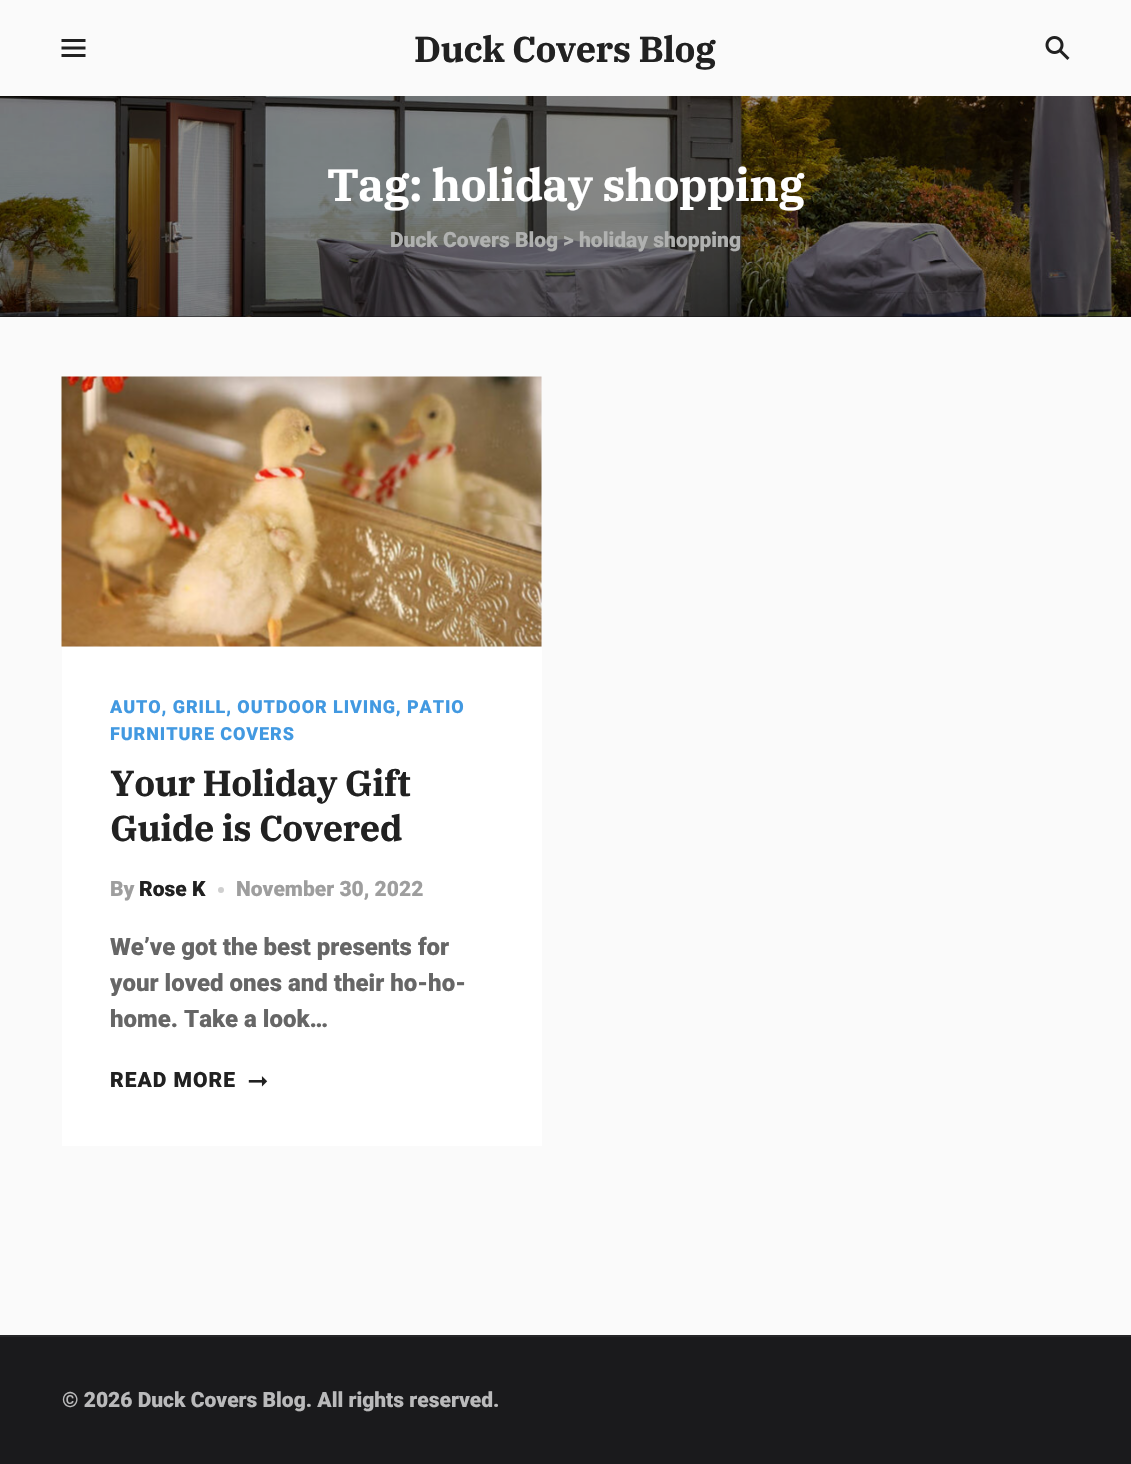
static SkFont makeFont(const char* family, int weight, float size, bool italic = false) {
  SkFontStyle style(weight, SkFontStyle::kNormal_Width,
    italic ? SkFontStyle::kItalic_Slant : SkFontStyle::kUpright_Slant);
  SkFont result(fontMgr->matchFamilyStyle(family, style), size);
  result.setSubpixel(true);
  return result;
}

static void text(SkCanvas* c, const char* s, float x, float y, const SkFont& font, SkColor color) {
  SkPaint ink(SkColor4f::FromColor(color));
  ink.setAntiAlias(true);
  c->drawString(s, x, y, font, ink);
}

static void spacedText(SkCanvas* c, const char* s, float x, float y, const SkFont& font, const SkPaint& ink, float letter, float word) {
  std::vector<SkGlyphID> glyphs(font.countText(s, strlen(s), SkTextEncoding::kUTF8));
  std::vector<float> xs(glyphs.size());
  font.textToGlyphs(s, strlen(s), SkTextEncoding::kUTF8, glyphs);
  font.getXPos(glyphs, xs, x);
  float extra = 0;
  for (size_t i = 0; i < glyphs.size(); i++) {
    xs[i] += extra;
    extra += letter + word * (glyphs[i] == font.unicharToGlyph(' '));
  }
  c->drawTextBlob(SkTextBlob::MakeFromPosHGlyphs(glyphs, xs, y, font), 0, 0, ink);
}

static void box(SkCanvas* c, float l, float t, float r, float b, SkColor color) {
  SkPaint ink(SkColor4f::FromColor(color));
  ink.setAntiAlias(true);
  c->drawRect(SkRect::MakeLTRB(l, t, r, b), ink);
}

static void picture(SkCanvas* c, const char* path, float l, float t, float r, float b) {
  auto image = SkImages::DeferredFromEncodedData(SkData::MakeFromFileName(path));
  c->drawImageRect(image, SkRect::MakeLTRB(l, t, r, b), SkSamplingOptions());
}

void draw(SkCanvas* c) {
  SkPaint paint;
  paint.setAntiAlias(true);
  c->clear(0xfffafafa);
  picture(c, "img_01.png", 61, 39, 86, 57);
  SkFont face1 = makeFont("IBM Plex Serif", 700, 36);
  paint.setColor(0xff212121);
  spacedText(c, "Duck Covers Blog", 414, 62, face1, paint, -0.5f, 0);
  picture(c, "img_02.png", 1045, 36, 1070, 60);
  box(c, 0, 316, 1131, 317, 0xff101011);
  picture(c, "img_03.png", 0, 96, 1131, 317);
  SkFont face2 = makeFont("IBM Plex Serif", 700, 45);
  paint.setColor(0xffffffff);
  spacedText(c, "Tag: holiday shopping", 327, 201, face2, paint, -0.6f, 0);
  SkFont face3 = makeFont("Roboto", 900, 21);
  text(c, "Duck Covers Blog", 390, 247, face3, 0xffb0b1b0);
  text(c, ">", 563, 247, face3, 0xffb0b1b0);
  text(c, "holiday shopping", 579, 247, face3, 0xffb0b1b0);
  box(c, 62, 647, 542, 1146, 0xffffffff);
  box(c, 62, 377, 542, 647, 0xfff5f5f5);
  picture(c, "img_04.png", 61, 376, 542, 647);
  SkFont face4 = makeFont("Roboto", 900, 18);
  paint.setColor(0xff4299e1);
  spacedText(c, "AUTO, GRILL, OUTDOOR LIVING, PATIO", 110, 713, face4, paint, 0.9f, 0);
  spacedText(c, "FURNITURE COVERS", 110, 740, face4, paint, 0.9f, 0);
  paint.setColor(0xff212121);
  spacedText(c, "Your Holiday Gift", 110, 796, face1, paint, -0.5f, 0);
  spacedText(c, "Guide is Covered", 110, 841, face1, paint, -0.5f, 0);
  text(c, "By", 110, 896, face3, 0xff9e9e9e);
  text(c, "Rose K", 139, 896, face3, 0xff212121);
  paint.setColor(0xffcfcfcf);
  c->drawCircle(221, 890, 3, paint);
  text(c, "November 30, 2022", 236, 896, face3, 0xff9e9e9e);
  SkFont face5 = makeFont("Roboto", 900, 24);
  text(c, "We’ve got the best presents for", 110, 955, face5, 0xff666666);
  text(c, "your loved ones and their ho-ho-", 110, 991, face5, 0xff666666);
  text(c, "home. Take a look…", 110, 1027, face5, 0xff666666);
  paint.setColor(0xff212121);
  spacedText(c, "READ MORE", 110, 1087, face3, paint, 1, 0);
  picture(c, "img_05.png", 248, 1076, 268, 1087);
  box(c, 0, 1337, 1131, 1464, 0xff1a1a1c);
  box(c, 0, 1335, 1131, 1337, 0xff252527);
  text(c, "© 2026 Duck Covers Blog. All rights reserved.", 62, 1407, face3, 0xffbababb);
}
